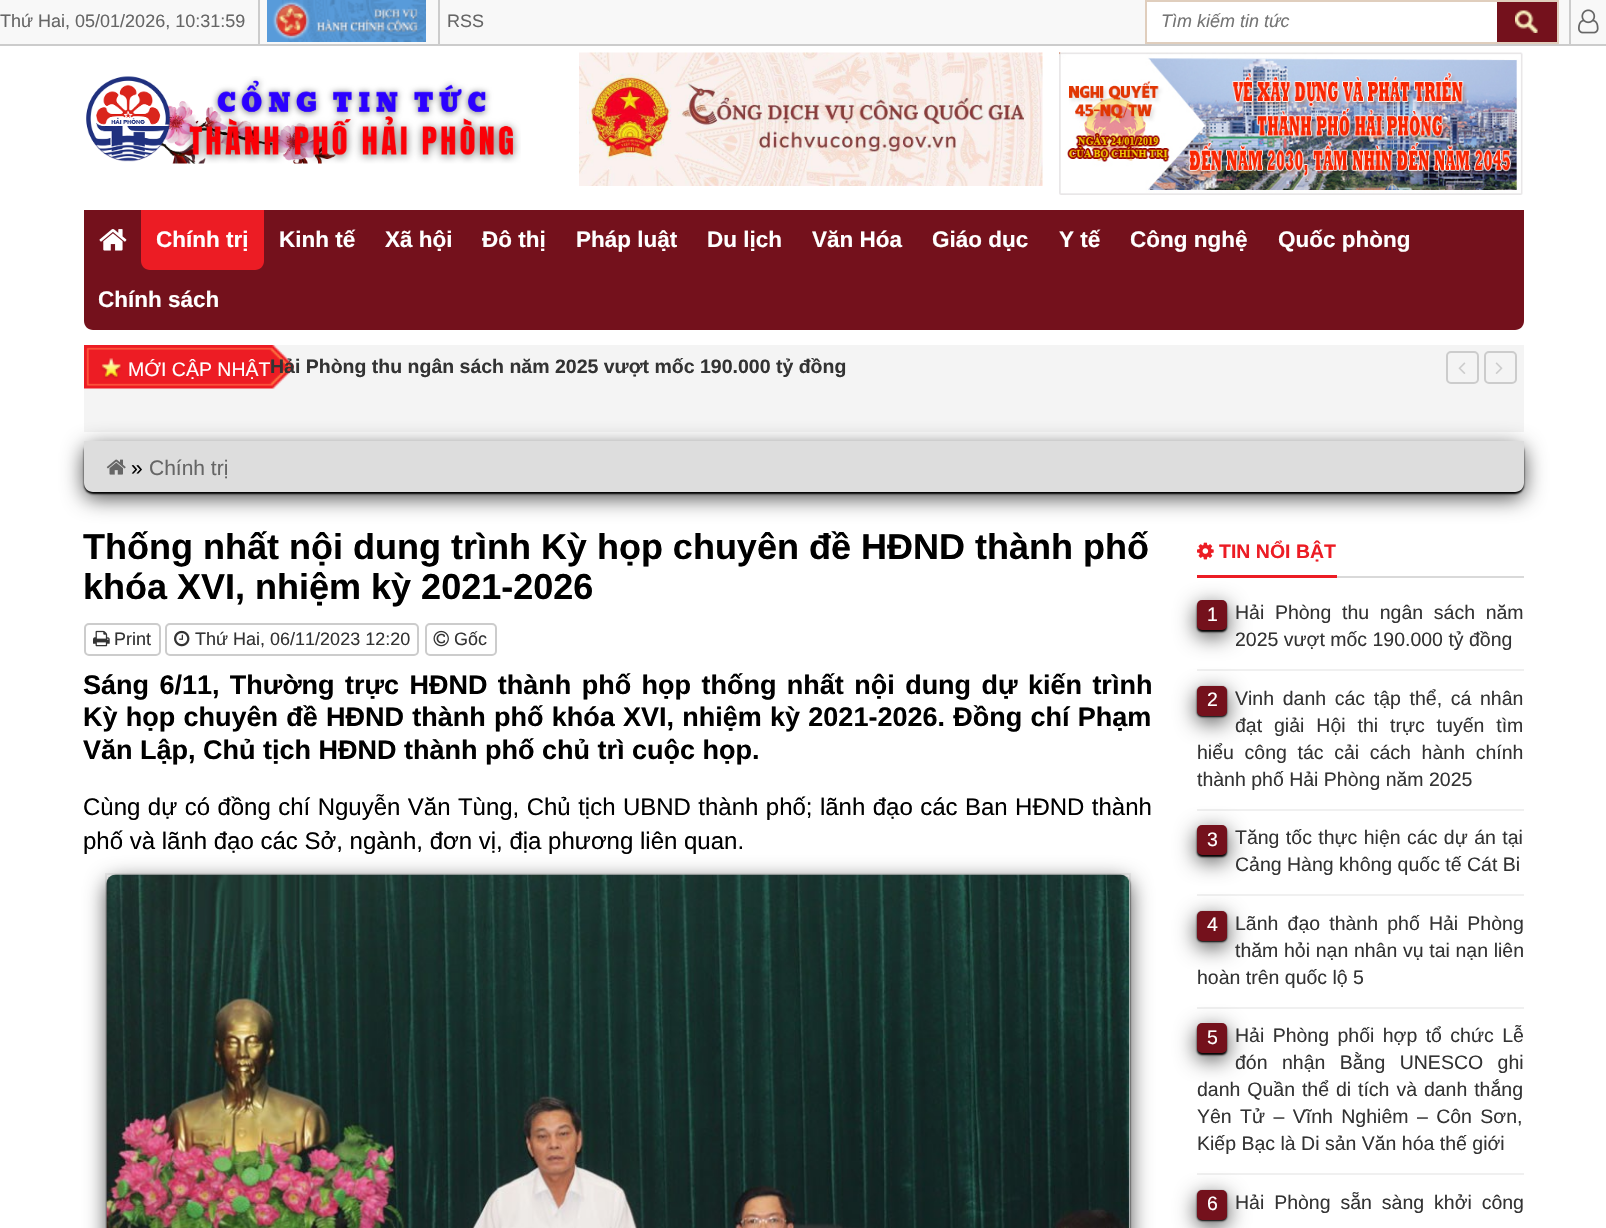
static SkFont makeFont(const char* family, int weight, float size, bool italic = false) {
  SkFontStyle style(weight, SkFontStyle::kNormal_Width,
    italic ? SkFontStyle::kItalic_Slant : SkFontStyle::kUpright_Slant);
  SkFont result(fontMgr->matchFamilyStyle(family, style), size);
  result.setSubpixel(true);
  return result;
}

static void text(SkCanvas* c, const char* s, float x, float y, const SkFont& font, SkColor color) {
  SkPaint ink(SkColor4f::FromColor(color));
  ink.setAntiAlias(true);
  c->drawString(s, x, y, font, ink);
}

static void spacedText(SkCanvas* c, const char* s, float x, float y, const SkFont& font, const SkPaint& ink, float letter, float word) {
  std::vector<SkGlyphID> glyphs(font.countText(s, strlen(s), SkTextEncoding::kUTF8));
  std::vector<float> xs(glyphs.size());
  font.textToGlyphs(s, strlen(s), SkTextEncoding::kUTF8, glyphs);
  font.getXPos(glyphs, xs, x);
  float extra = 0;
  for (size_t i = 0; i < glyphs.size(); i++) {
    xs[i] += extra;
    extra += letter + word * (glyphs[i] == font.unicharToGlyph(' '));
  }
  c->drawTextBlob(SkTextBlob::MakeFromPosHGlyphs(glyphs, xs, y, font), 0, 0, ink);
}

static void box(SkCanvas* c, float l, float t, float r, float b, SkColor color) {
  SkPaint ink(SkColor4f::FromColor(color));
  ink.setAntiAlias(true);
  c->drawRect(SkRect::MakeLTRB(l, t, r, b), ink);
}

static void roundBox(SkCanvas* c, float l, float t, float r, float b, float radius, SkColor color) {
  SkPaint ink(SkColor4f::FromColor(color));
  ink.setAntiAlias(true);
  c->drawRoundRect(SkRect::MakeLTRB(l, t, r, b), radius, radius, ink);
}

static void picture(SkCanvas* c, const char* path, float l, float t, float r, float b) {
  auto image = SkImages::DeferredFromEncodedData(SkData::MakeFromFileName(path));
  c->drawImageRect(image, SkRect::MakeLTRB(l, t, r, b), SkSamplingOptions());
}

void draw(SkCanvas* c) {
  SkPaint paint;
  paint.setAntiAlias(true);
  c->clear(0xffffffff);
  box(c, 0, 0, 1606, 44, 0xfff8f8f8);
  box(c, 0, 44, 1606, 46, 0xffcccccc);
  SkFont face1 = makeFont("Liberation Sans", 400, 18);
  text(c, "Thứ Hai, 05/01/2026, 10:31:59", 0, 27, face1, 0xff666666);
  box(c, 258, 0, 260, 44, 0xffcccccc);
  picture(c, "img_01.png", 267, 0, 426, 42);
  box(c, 438, 0, 440, 44, 0xffcccccc);
  text(c, "RSS", 447, 27, face1, 0xff666666);
  box(c, 1147, 2, 1497, 42, 0xffffffff);
  box(c, 1145, 0, 1559, 2, 0xffe0cebd);
  box(c, 1145, 42, 1559, 44, 0xffe0cebd);
  box(c, 1145, 0, 1147, 44, 0xffe0cebd);
  SkFont face2 = makeFont("Liberation Sans", 400, 18, true);
  text(c, "Tìm kiếm tin tức", 1161, 27, face2, 0xff757575);
  box(c, 1497, 2, 1557, 42, 0xff74111c);
  picture(c, "img_02.png", 1515, 10, 1538, 33);
  box(c, 1557, 0, 1559, 44, 0xffe0cebd);
  box(c, 1569, 0, 1571, 44, 0xffcccccc);
  picture(c, "img_03.png", 1578, 9, 1599, 34);
  picture(c, "img_04.png", 86, 76, 521, 164);
  picture(c, "img_05.png", 579, 52, 1043, 186);
  picture(c, "img_06.png", 1059, 52, 1523, 195);
  paint.setColor(0xff74111c);
  c->drawPath(SkPathBuilder().moveTo(84, 210).lineTo(1524, 210).lineTo(1524, 321).cubicTo(1524, 326, 1520, 330, 1515, 330).lineTo(93, 330).cubicTo(88, 330, 84, 326, 84, 321).close().detach(), paint);
  picture(c, "img_07.png", 99, 229, 127, 251);
  paint.setColor(0xffec1c24);
  c->drawPath(SkPathBuilder().moveTo(141, 210).lineTo(264, 210).lineTo(264, 261).cubicTo(264, 266, 260, 270, 255, 270).lineTo(150, 270).cubicTo(145, 270, 141, 266, 141, 261).close().detach(), paint);
  SkFont face3 = makeFont("Liberation Sans", 700, 22.5f);
  text(c, "Chính trị", 156, 247, face3, 0xffffffff);
  text(c, "Kinh tế", 279, 247, face3, 0xffffffff);
  text(c, "Xã hội", 385, 247, face3, 0xffffffff);
  text(c, "Đô thị", 482, 247, face3, 0xffffffff);
  text(c, "Pháp luật", 576, 247, face3, 0xffffffff);
  text(c, "Du lịch", 707, 247, face3, 0xffffffff);
  text(c, "Văn Hóa", 812, 247, face3, 0xffffffff);
  text(c, "Giáo dục", 932, 247, face3, 0xffffffff);
  text(c, "Y tế", 1059, 247, face3, 0xffffffff);
  text(c, "Công nghệ", 1130, 247, face3, 0xffffffff);
  text(c, "Quốc phòng", 1278, 247, face3, 0xffffffff);
  text(c, "Chính sách", 98, 307, face3, 0xffffffff);
  box(c, 84, 345, 1524, 432, 0xfff4f4f4);
  picture(c, "img_08.png", 84, 345, 294, 389);
  SkFont face4 = makeFont("Liberation Sans", 400, 19.5f);
  text(c, "MỚI CẬP NHẬT", 128, 376, face4, 0xffffffff);
  SkFont face5 = makeFont("Liberation Sans", 700, 19.5f);
  text(c, "Hải Phòng thu ngân sách năm 2025 vượt mốc 190.000 tỷ đồng", 270, 373, face5, 0xff333333);
  paint.setStyle(SkPaint::kStroke_Style);
  paint.setStrokeWidth(2);
  paint.setColor(0xffcccccc);
  c->drawRoundRect(SkRect::MakeLTRB(1447, 352, 1478, 383), 4, 4, paint);
  picture(c, "img_09.png", 1458, 362, 1466, 374);
  c->drawRoundRect(SkRect::MakeLTRB(1485, 352, 1516, 383), 4, 4, paint);
  picture(c, "img_10.png", 1495, 362, 1503, 374);
  paint.setStyle(SkPaint::kFill_Style);
  paint.setColor(0xb3000000);
  paint.setMaskFilter(SkMaskFilter::MakeBlur(kNormal_SkBlurStyle, 10.5f));
  c->drawRoundRect(SkRect::MakeLTRB(84, 447, 1524, 498), 9, 9, paint);
  paint.setMaskFilter(nullptr);
  paint.setColor(0xff000000);
  paint.setMaskFilter(SkMaskFilter::MakeBlur(kNormal_SkBlurStyle, 1));
  c->drawRoundRect(SkRect::MakeLTRB(84, 443, 1524, 494), 9, 9, paint);
  paint.setMaskFilter(nullptr);
  paint.setColor(0xffdddddd);
  c->drawPath(SkPathBuilder().moveTo(84, 441).lineTo(1524, 441).lineTo(1524, 483).cubicTo(1524, 488, 1520, 492, 1515, 492).lineTo(93, 492).cubicTo(88, 492, 84, 488, 84, 483).close().detach(), paint);
  picture(c, "img_11.png", 106, 459, 126, 475);
  SkFont face6 = makeFont("Liberation Sans", 400, 21);
  text(c, "»", 131, 475, face6, 0xff000000);
  text(c, "Chính trị", 149, 475, face6, 0xff666666);
  SkFont face7 = makeFont("Liberation Sans", 700, 36);
  text(c, "Thống nhất nội dung trình Kỳ họp chuyên đề HĐND thành phố", 83, 559, face7, 0xff000000);
  text(c, "khóa XVI, nhiệm kỳ 2021-2026", 83, 599, face7, 0xff000000);
  paint.setStyle(SkPaint::kStroke_Style);
  paint.setColor(0xffcccccc);
  c->drawRoundRect(SkRect::MakeLTRB(85, 624, 160, 655), 4, 4, paint);
  picture(c, "img_12.png", 93, 630, 110, 647);
  text(c, "Print", 114, 645, face1, 0xff333333);
  c->drawRoundRect(SkRect::MakeLTRB(166, 624, 418, 655), 4, 4, paint);
  picture(c, "img_13.png", 174, 630, 190, 647);
  text(c, "Thứ Hai, 06/11/2023 12:20", 195, 645, face1, 0xff333333);
  c->drawRoundRect(SkRect::MakeLTRB(426, 624, 496, 655), 4, 4, paint);
  picture(c, "img_14.png", 433, 630, 449, 647);
  text(c, "Gốc", 454, 645, face1, 0xff333333);
  SkFont face8 = makeFont("Liberation Sans", 700, 27);
  paint.setStyle(SkPaint::kFill_Style);
  paint.setColor(0xff000000);
  spacedText(c, "Sáng 6/11, Thường trực HĐND thành phố họp thống nhất nội dung dự kiến trình", 83, 694, face8, paint, 0, 2.9f);
  spacedText(c, "Kỳ họp chuyên đề HĐND thành phố khóa XVI, nhiệm kỳ 2021-2026. Đồng chí Phạm", 83, 726, face8, paint, 0, 0.75f);
  text(c, "Văn Lập, Chủ tịch HĐND thành phố chủ trì cuộc họp.", 83, 759, face8, 0xff000000);
  SkFont face9 = makeFont("Liberation Sans", 400, 24);
  spacedText(c, "Cùng dự có đồng chí Nguyễn Văn Tùng, Chủ tịch UBND thành phố; lãnh đạo các Ban HĐND thành", 83, 815, face9, paint, 0, 0.75f);
  text(c, "phố và lãnh đạo các Sở, ngành, đơn vị, địa phương liên quan.", 83, 849, face9, 0xff000000);
  paint.setStyle(SkPaint::kStroke_Style);
  paint.setColor(0xfff0f0f0);
  c->drawRect(SkRect::MakeLTRB(106, 874, 1130, 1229), paint);
  paint.setStyle(SkPaint::kFill_Style);
  paint.setColor(0xb3000000);
  paint.setMaskFilter(SkMaskFilter::MakeBlur(kNormal_SkBlurStyle, 10.5f));
  c->drawRoundRect(SkRect::MakeLTRB(107, 881, 1130, 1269), 9, 9, paint);
  paint.setMaskFilter(nullptr);
  paint.setColor(0xff000000);
  paint.setMaskFilter(SkMaskFilter::MakeBlur(kNormal_SkBlurStyle, 1));
  c->drawRoundRect(SkRect::MakeLTRB(107, 876, 1130, 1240), 9, 9, paint);
  paint.setMaskFilter(nullptr);
  paint.setColor(0xffdddddd);
  c->drawPath(SkPathBuilder().moveTo(116, 875).lineTo(1121, 875).cubicTo(1126, 875, 1130, 879, 1130, 884).lineTo(1130, 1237).lineTo(107, 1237).lineTo(107, 884).cubicTo(107, 879, 111, 875, 116, 875).close().detach(), paint);
  picture(c, "img_15.png", 106, 874, 1130, 1228);
  box(c, 1337, 576, 1524, 578, 0xffd9d9d9);
  box(c, 1197, 575, 1337, 578, 0xffec1c24);
  picture(c, "img_16.png", 1197, 542, 1214, 560);
  text(c, "TIN NỔI BẬT", 1219, 558, face5, 0xffec1c24);
  box(c, 1197, 669, 1524, 671, 0xfff0f0f0);
  paint.setColor(0xb3000000);
  paint.setMaskFilter(SkMaskFilter::MakeBlur(kNormal_SkBlurStyle, 10.5f));
  c->drawRoundRect(SkRect::MakeLTRB(1197, 606, 1227, 636), 5, 5, paint);
  paint.setMaskFilter(nullptr);
  paint.setColor(0xff000000);
  paint.setMaskFilter(SkMaskFilter::MakeBlur(kNormal_SkBlurStyle, 1));
  c->drawRoundRect(SkRect::MakeLTRB(1197, 602, 1227, 632), 5, 5, paint);
  paint.setMaskFilter(nullptr);
  roundBox(c, 1197, 600, 1227, 630, 5, 0xff74111c);
  text(c, "1", 1207, 621, face4, 0xffffffff);
  paint.setColor(0xff333333);
  spacedText(c, "Hải Phòng thu ngân sách năm", 1235, 619, face4, paint, 0, 5.25f);
  text(c, "2025 vượt mốc 190.000 tỷ đồng", 1235, 646, face4, 0xff333333);
  box(c, 1197, 809, 1524, 811, 0xfff0f0f0);
  paint.setColor(0xb3000000);
  paint.setMaskFilter(SkMaskFilter::MakeBlur(kNormal_SkBlurStyle, 10.5f));
  c->drawRoundRect(SkRect::MakeLTRB(1197, 692, 1227, 722), 5, 5, paint);
  paint.setMaskFilter(nullptr);
  paint.setColor(0xff000000);
  paint.setMaskFilter(SkMaskFilter::MakeBlur(kNormal_SkBlurStyle, 1));
  c->drawRoundRect(SkRect::MakeLTRB(1197, 687, 1227, 717), 5, 5, paint);
  paint.setMaskFilter(nullptr);
  roundBox(c, 1197, 686, 1227, 716, 5, 0xff74111c);
  text(c, "2", 1207, 706, face4, 0xffffffff);
  paint.setColor(0xff333333);
  spacedText(c, "Vinh danh các tập thể, cá nhân", 1235, 705, face4, paint, 0, 3.25f);
  spacedText(c, "đạt giải Hội thi trực tuyến tìm", 1235, 732, face4, paint, 0, 6.5f);
  spacedText(c, "hiểu công tác cải cách hành chính", 1197, 759, face4, paint, 0, 5.25f);
  text(c, "thành phố Hải Phòng năm 2025", 1197, 786, face4, 0xff333333);
  box(c, 1197, 894, 1524, 896, 0xfff0f0f0);
  paint.setColor(0xb3000000);
  paint.setMaskFilter(SkMaskFilter::MakeBlur(kNormal_SkBlurStyle, 10.5f));
  c->drawRoundRect(SkRect::MakeLTRB(1197, 831, 1227, 861), 5, 5, paint);
  paint.setMaskFilter(nullptr);
  paint.setColor(0xff000000);
  paint.setMaskFilter(SkMaskFilter::MakeBlur(kNormal_SkBlurStyle, 1));
  c->drawRoundRect(SkRect::MakeLTRB(1197, 827, 1227, 857), 5, 5, paint);
  paint.setMaskFilter(nullptr);
  roundBox(c, 1197, 825, 1227, 855, 5, 0xff74111c);
  text(c, "3", 1207, 846, face4, 0xffffffff);
  paint.setColor(0xff333333);
  spacedText(c, "Tăng tốc thực hiện các dự án tại", 1235, 844, face4, paint, 0, 1);
  text(c, "Cảng Hàng không quốc tế Cát Bi", 1235, 871, face4, 0xff333333);
  box(c, 1197, 1007, 1524, 1009, 0xfff0f0f0);
  paint.setColor(0xb3000000);
  paint.setMaskFilter(SkMaskFilter::MakeBlur(kNormal_SkBlurStyle, 10.5f));
  c->drawRoundRect(SkRect::MakeLTRB(1197, 917, 1227, 947), 5, 5, paint);
  paint.setMaskFilter(nullptr);
  paint.setColor(0xff000000);
  paint.setMaskFilter(SkMaskFilter::MakeBlur(kNormal_SkBlurStyle, 1));
  c->drawRoundRect(SkRect::MakeLTRB(1197, 912, 1227, 942), 5, 5, paint);
  paint.setMaskFilter(nullptr);
  roundBox(c, 1197, 911, 1227, 941, 5, 0xff74111c);
  text(c, "4", 1207, 931, face4, 0xffffffff);
  paint.setColor(0xff333333);
  spacedText(c, "Lãnh đạo thành phố Hải Phòng", 1235, 930, face4, paint, 0, 3.75f);
  spacedText(c, "thăm hỏi nạn nhân vụ tai nạn liên", 1235, 957, face4, paint, 0, 0.25f);
  text(c, "hoàn trên quốc lộ 5", 1197, 984, face4, 0xff333333);
  box(c, 1197, 1173, 1524, 1175, 0xfff0f0f0);
  paint.setColor(0xb3000000);
  paint.setMaskFilter(SkMaskFilter::MakeBlur(kNormal_SkBlurStyle, 10.5f));
  c->drawRoundRect(SkRect::MakeLTRB(1197, 1029, 1227, 1059), 5, 5, paint);
  paint.setMaskFilter(nullptr);
  paint.setColor(0xff000000);
  paint.setMaskFilter(SkMaskFilter::MakeBlur(kNormal_SkBlurStyle, 1));
  c->drawRoundRect(SkRect::MakeLTRB(1197, 1025, 1227, 1055), 5, 5, paint);
  paint.setMaskFilter(nullptr);
  roundBox(c, 1197, 1023, 1227, 1053, 5, 0xff74111c);
  text(c, "5", 1207, 1044, face4, 0xffffffff);
  paint.setColor(0xff333333);
  spacedText(c, "Hải Phòng phối hợp tổ chức Lễ", 1235, 1042, face4, paint, 0, 3);
  spacedText(c, "đón nhận Bằng UNESCO ghi", 1235, 1069, face4, paint, 0, 9);
  spacedText(c, "danh Quần thể di tích và danh thắng", 1197, 1096, face4, paint, 0, 1.5f);
  spacedText(c, "Yên Tử – Vĩnh Nghiêm – Côn Sơn,", 1197, 1123, face4, paint, 0, 3);
  text(c, "Kiếp Bạc là Di sản Văn hóa thế giới", 1197, 1150, face4, 0xff333333);
  paint.setColor(0xb3000000);
  paint.setMaskFilter(SkMaskFilter::MakeBlur(kNormal_SkBlurStyle, 10.5f));
  c->drawRoundRect(SkRect::MakeLTRB(1197, 1196, 1227, 1226), 5, 5, paint);
  paint.setMaskFilter(nullptr);
  paint.setColor(0xff000000);
  paint.setMaskFilter(SkMaskFilter::MakeBlur(kNormal_SkBlurStyle, 1));
  c->drawRoundRect(SkRect::MakeLTRB(1197, 1191, 1227, 1221), 5, 5, paint);
  paint.setMaskFilter(nullptr);
  roundBox(c, 1197, 1190, 1227, 1220, 5, 0xff74111c);
  text(c, "6", 1207, 1210, face4, 0xffffffff);
  paint.setColor(0xff333333);
  spacedText(c, "Hải Phòng sẵn sàng khởi công", 1235, 1209, face4, paint, 0, 4.5f);
}
